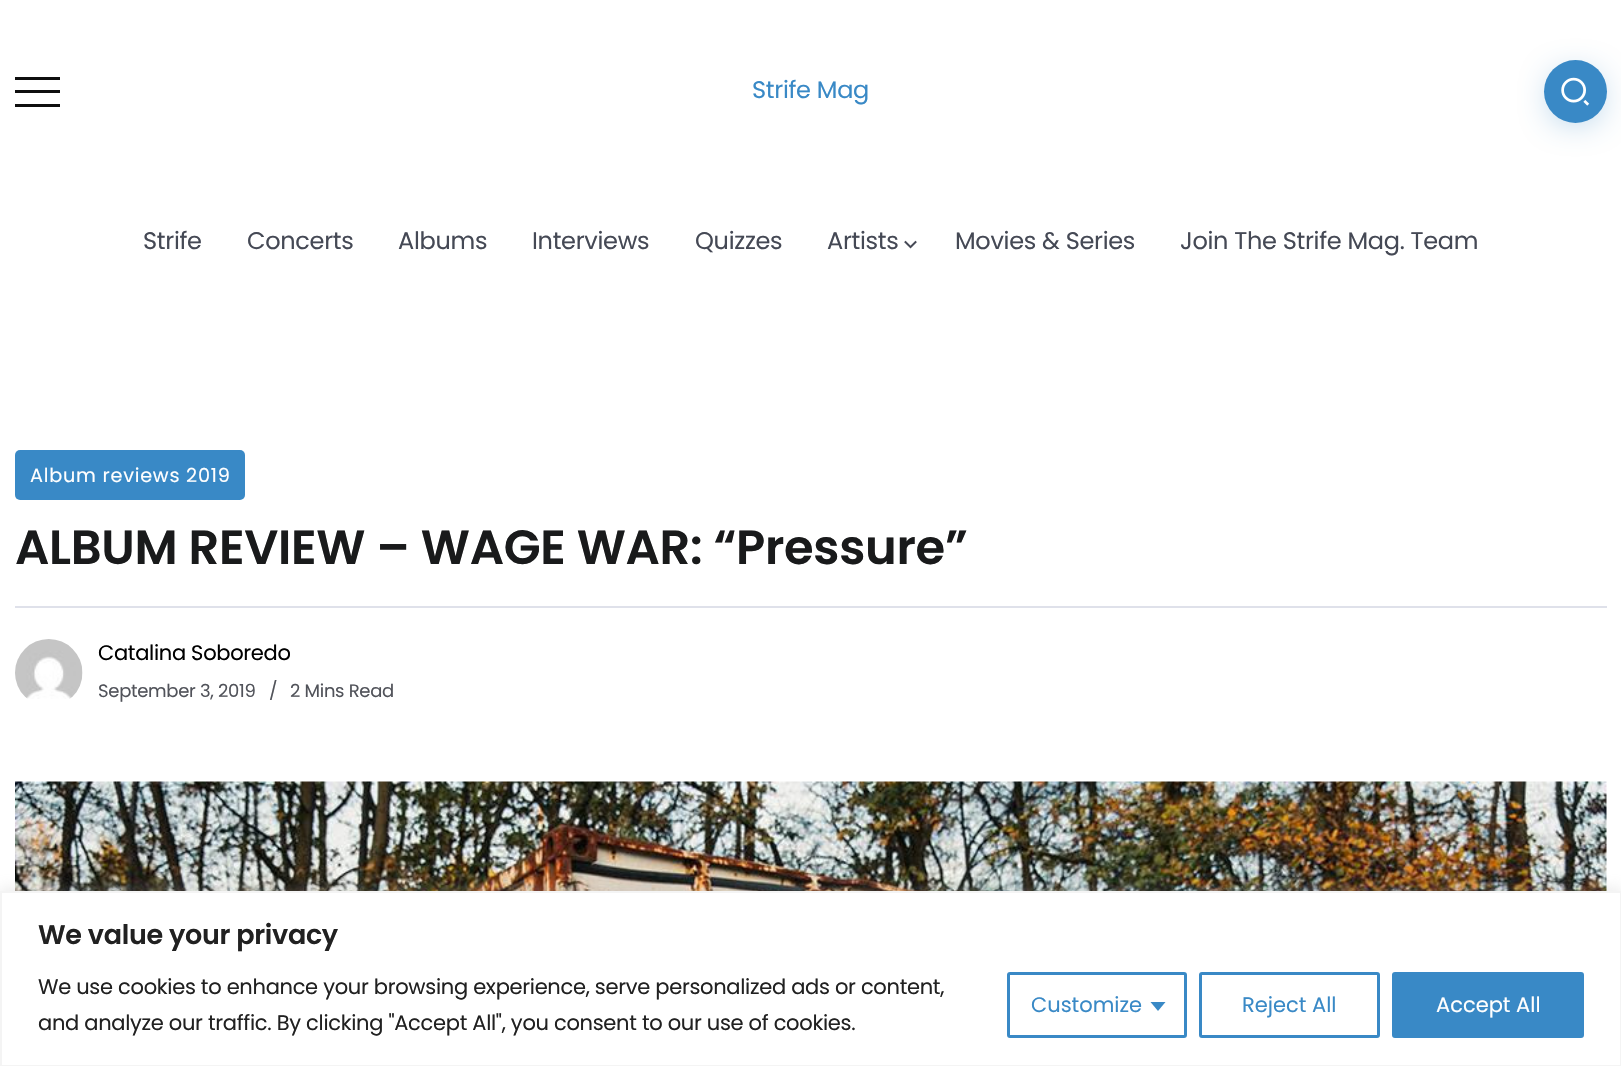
static SkFont makeFont(const char* family, int weight, float size, bool italic = false) {
  SkFontStyle style(weight, SkFontStyle::kNormal_Width,
    italic ? SkFontStyle::kItalic_Slant : SkFontStyle::kUpright_Slant);
  SkFont result(fontMgr->matchFamilyStyle(family, style), size);
  result.setSubpixel(true);
  return result;
}

static void text(SkCanvas* c, const char* s, float x, float y, const SkFont& font, SkColor color) {
  SkPaint ink(SkColor4f::FromColor(color));
  ink.setAntiAlias(true);
  c->drawString(s, x, y, font, ink);
}

static void spacedText(SkCanvas* c, const char* s, float x, float y, const SkFont& font, const SkPaint& ink, float letter, float word) {
  std::vector<SkGlyphID> glyphs(font.countText(s, strlen(s), SkTextEncoding::kUTF8));
  std::vector<float> xs(glyphs.size());
  font.textToGlyphs(s, strlen(s), SkTextEncoding::kUTF8, glyphs);
  font.getXPos(glyphs, xs, x);
  float extra = 0;
  for (size_t i = 0; i < glyphs.size(); i++) {
    xs[i] += extra;
    extra += letter + word * (glyphs[i] == font.unicharToGlyph(' '));
  }
  c->drawTextBlob(SkTextBlob::MakeFromPosHGlyphs(glyphs, xs, y, font), 0, 0, ink);
}

static void box(SkCanvas* c, float l, float t, float r, float b, SkColor color) {
  SkPaint ink(SkColor4f::FromColor(color));
  ink.setAntiAlias(true);
  c->drawRect(SkRect::MakeLTRB(l, t, r, b), ink);
}

static void roundBox(SkCanvas* c, float l, float t, float r, float b, float radius, SkColor color) {
  SkPaint ink(SkColor4f::FromColor(color));
  ink.setAntiAlias(true);
  c->drawRoundRect(SkRect::MakeLTRB(l, t, r, b), radius, radius, ink);
}

static void picture(SkCanvas* c, const char* path, float l, float t, float r, float b) {
  auto image = SkImages::DeferredFromEncodedData(SkData::MakeFromFileName(path));
  c->drawImageRect(image, SkRect::MakeLTRB(l, t, r, b), SkSamplingOptions());
}

void draw(SkCanvas* c) {
  SkPaint paint;
  paint.setAntiAlias(true);
  c->clear(0xffffffff);
  box(c, 15, 77, 60, 80, 0xff0f0f0f);
  box(c, 15, 90, 60, 93, 0xff0f0f0f);
  box(c, 15, 104, 60, 107, 0xff0f0f0f);
  SkFont face1 = makeFont("Poppins", 400, 24);
  paint.setColor(0xff3989c6);
  spacedText(c, "Strife Mag", 752, 98, face1, paint, -0.3f, 0);
  paint.setMaskFilter(SkMaskFilter::MakeBlur(kNormal_SkBlurStyle, 19));
  c->drawRoundRect(SkRect::MakeLTRB(1559, 81, 1592, 114), 16.5f, 16.5f, paint);
  paint.setMaskFilter(nullptr);
  c->drawCircle(1575.5f, 91.5f, 31.5f, paint);
  picture(c, "img_01.png", 1561, 77, 1590, 106);
  paint.setColor(0xff454955);
  spacedText(c, "Strife", 143, 249, face1, paint, -0.3f, 0);
  spacedText(c, "Concerts", 247, 249, face1, paint, -0.3f, 0);
  spacedText(c, "Albums", 398, 249, face1, paint, -0.3f, 0);
  spacedText(c, "Interviews", 532, 249, face1, paint, -0.3f, 0);
  spacedText(c, "Quizzes", 695, 249, face1, paint, -0.3f, 0);
  spacedText(c, "Artists", 827, 249, face1, paint, -0.3f, 0);
  picture(c, "img_02.png", 904, 240, 917, 249);
  spacedText(c, "Movies & Series", 955, 249, face1, paint, -0.3f, 0);
  spacedText(c, "Join The Strife Mag. Team", 1180, 249, face1, paint, -0.3f, 0);
  roundBox(c, 15, 450, 245, 500, 5, 0xff3989c6);
  SkFont face2 = makeFont("Poppins", 400, 19.25f);
  paint.setColor(0xffffffff);
  spacedText(c, "Album reviews 2019", 30, 482, face2, paint, 0.75f, 0);
  box(c, 15, 606, 1607, 608, 0xffdfe1ea);
  SkFont face3 = makeFont("Poppins", 600, 48);
  paint.setColor(0xff191a1b);
  spacedText(c, "ALBUM REVIEW – WAGE WAR: “Pressure”", 15, 564, face3, paint, -0.3f, 0);
  picture(c, "img_03.png", 15, 639, 83, 699);
  SkFont face4 = makeFont("Poppins", 400, 21);
  paint.setColor(0xff000000);
  spacedText(c, "Catalina Soboredo", 98, 660, face4, paint, -0.3f, 0);
  SkFont face5 = makeFont("Poppins", 400, 18);
  paint.setColor(0xff51535a);
  spacedText(c, "September 3, 2019", 98, 697, face5, paint, -0.3f, 0);
  spacedText(c, "/", 269, 697, face5, paint, -0.3f, 0);
  spacedText(c, "2 Mins Read", 290, 697, face5, paint, -0.3f, 0);
  picture(c, "img_04.png", 15, 781, 1607, 891);
  paint.setColor(0x4dacabab);
  paint.setMaskFilter(SkMaskFilter::MakeBlur(kNormal_SkBlurStyle, 7.5f));
  c->drawRect(SkRect::MakeLTRB(0, 890, 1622, 1065), paint);
  paint.setMaskFilter(nullptr);
  paint.setColor(0xffffffff);
  c->drawRect(SkRect::MakeLTRB(1, 892, 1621, 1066), paint);
  paint.setStyle(SkPaint::kStroke_Style);
  paint.setStrokeWidth(2);
  paint.setColor(0xfff4f4f4);
  c->drawRect(SkRect::MakeLTRB(1, 892, 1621, 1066), paint);
  SkFont face6 = makeFont("Poppins", 600, 27);
  paint.setStyle(SkPaint::kFill_Style);
  paint.setColor(0xff212121);
  spacedText(c, "We value your privacy", 38, 944, face6, paint, -0.3f, 0);
  spacedText(c, "We use cookies to enhance your browsing experience, serve personalized ads or content,", 38, 994, face4, paint, -0.3f, 0);
  spacedText(c, "and analyze our traffic. By clicking \"Accept All\", you consent to our use of cookies.", 38, 1030, face4, paint, -0.3f, 0);
  paint.setStyle(SkPaint::kStroke_Style);
  paint.setStrokeWidth(3);
  paint.setColor(0xff3989c6);
  c->drawRoundRect(SkRect::MakeLTRB(1008.5f, 973.5f, 1185.5f, 1036.5f), 1.5f, 1.5f, paint);
  text(c, "Customize", 1031, 1012, face4, 0xff3989c6);
  paint.setStyle(SkPaint::kFill_Style);
  c->drawPath(SkPathBuilder().moveTo(1150.5f, 1002).lineTo(1165.5f, 1002).lineTo(1158, 1011).close().detach(), paint);
  paint.setStyle(SkPaint::kStroke_Style);
  c->drawRoundRect(SkRect::MakeLTRB(1200.5f, 973.5f, 1378.5f, 1036.5f), 1.5f, 1.5f, paint);
  text(c, "Reject All", 1242, 1012, face4, 0xff3989c6);
  paint.setStyle(SkPaint::kFill_Style);
  c->drawRoundRect(SkRect::MakeLTRB(1393.5f, 973.5f, 1582.5f, 1036.5f), 1.5f, 1.5f, paint);
  paint.setStyle(SkPaint::kStroke_Style);
  c->drawRoundRect(SkRect::MakeLTRB(1393.5f, 973.5f, 1582.5f, 1036.5f), 1.5f, 1.5f, paint);
  text(c, "Accept All", 1436, 1012, face4, 0xffffffff);
}
